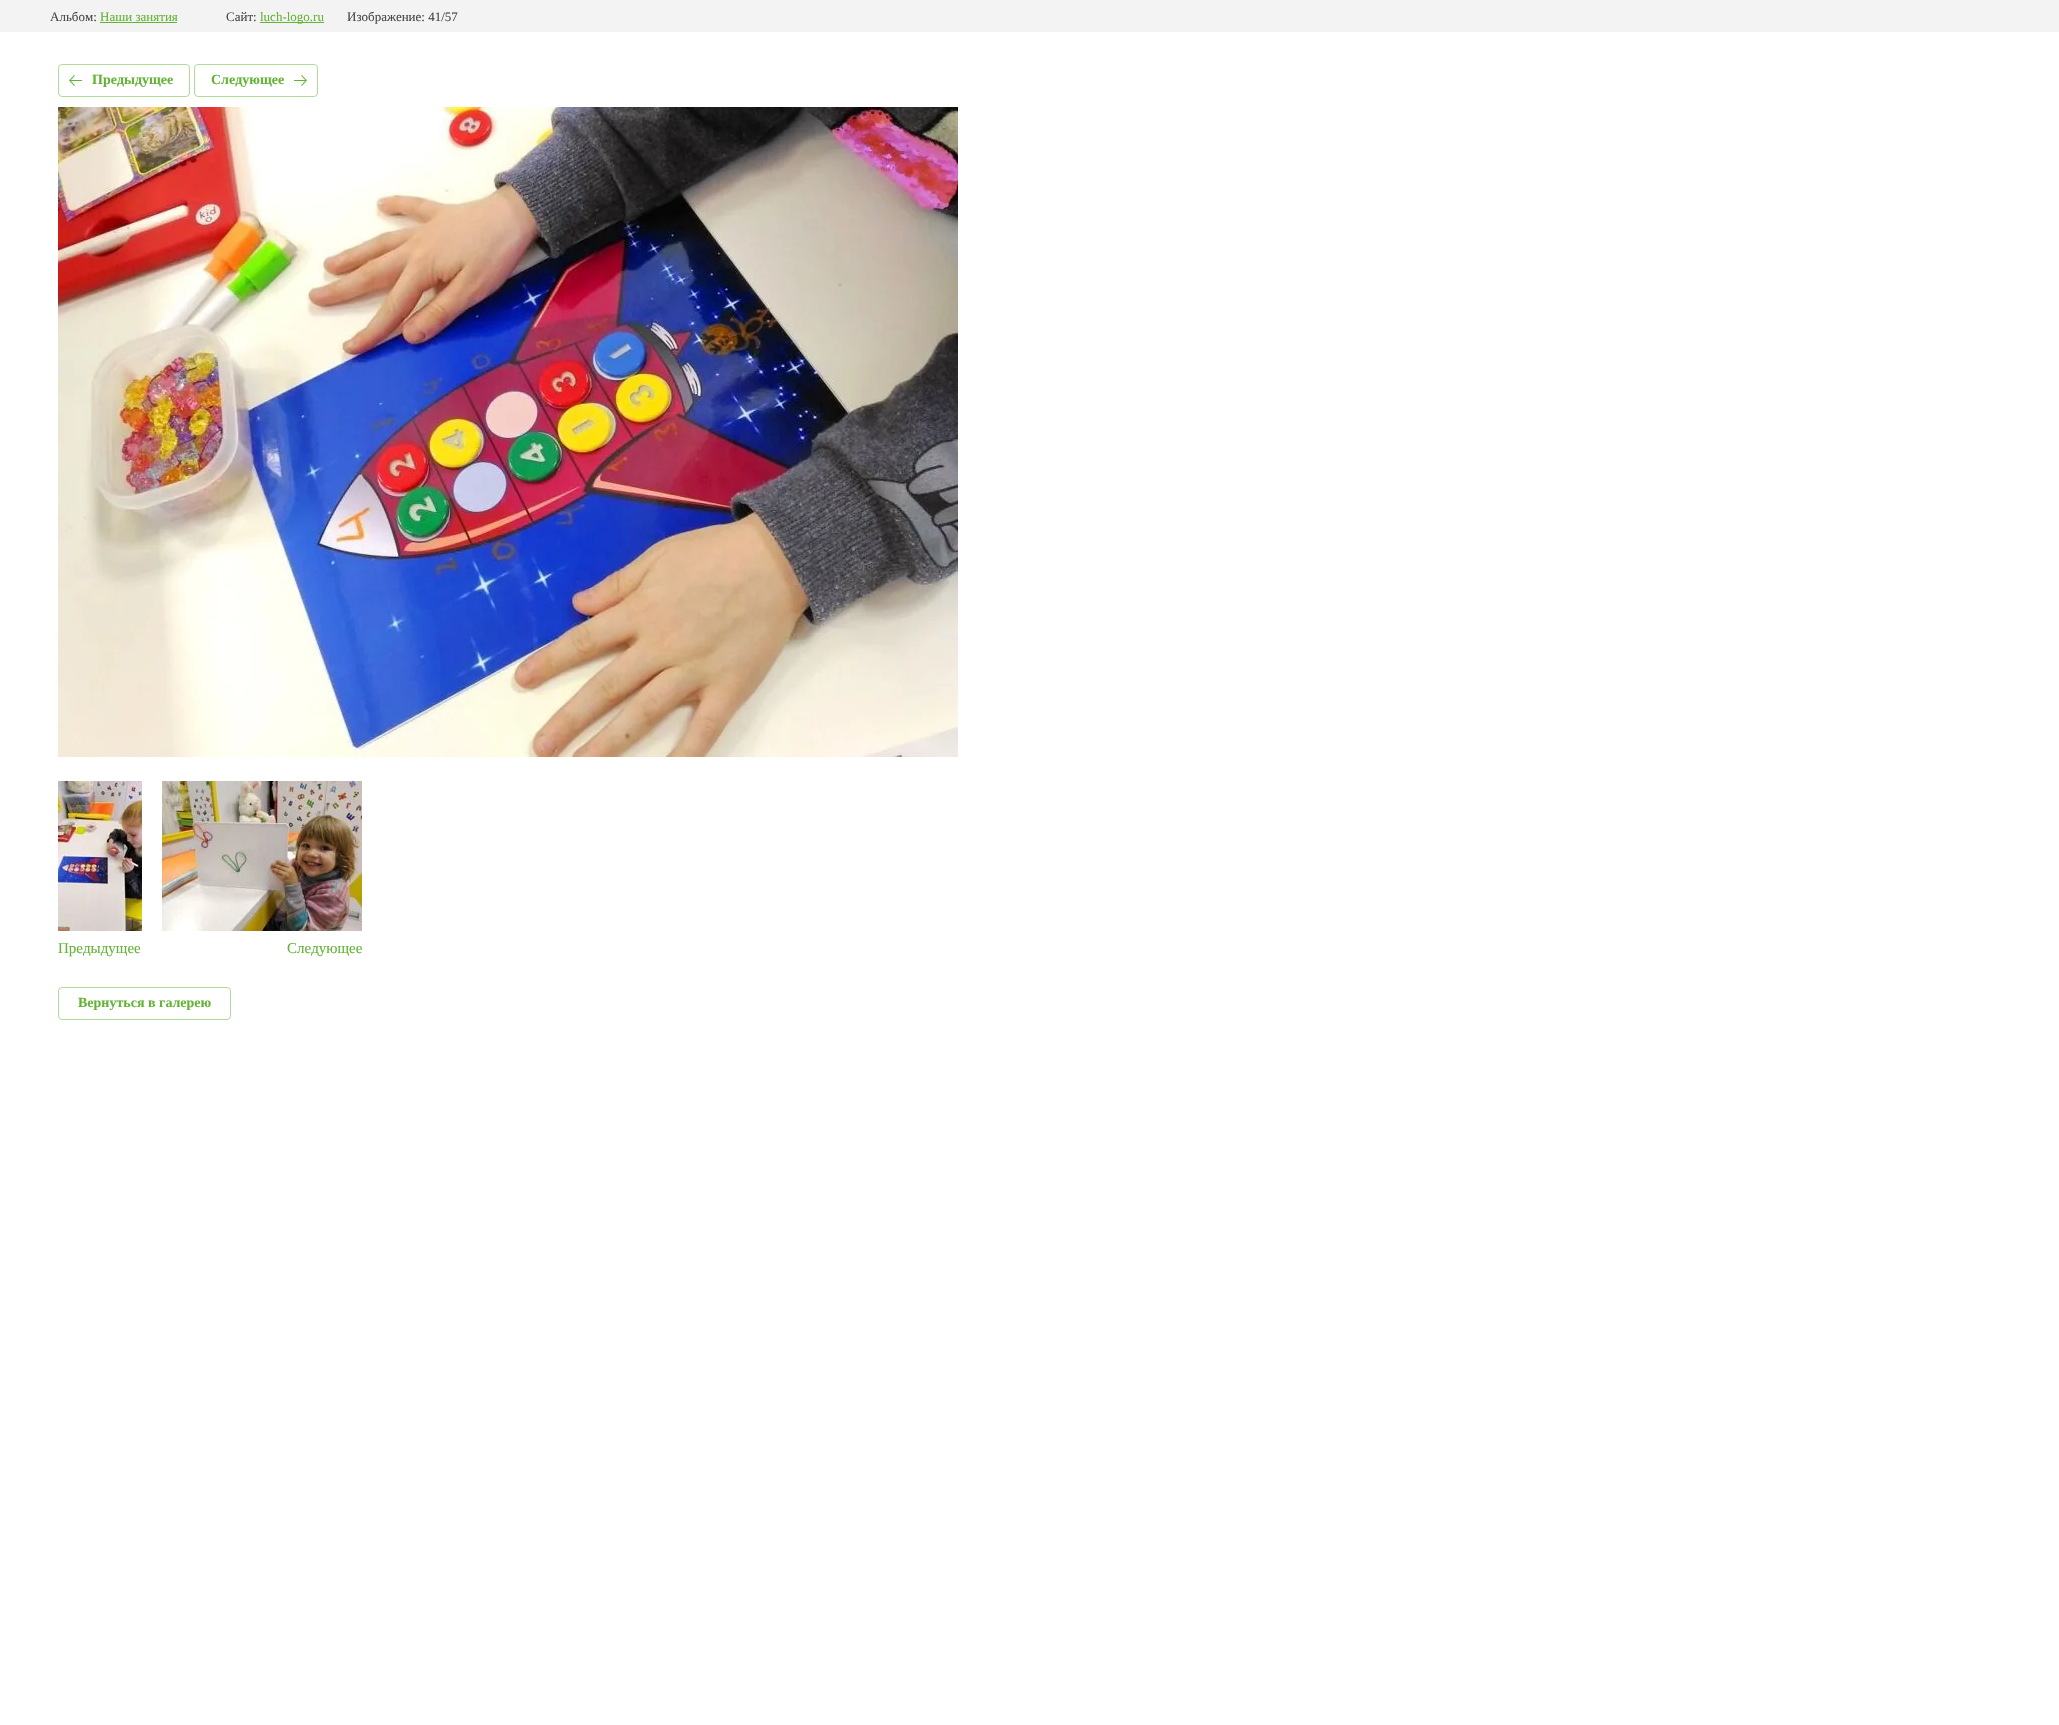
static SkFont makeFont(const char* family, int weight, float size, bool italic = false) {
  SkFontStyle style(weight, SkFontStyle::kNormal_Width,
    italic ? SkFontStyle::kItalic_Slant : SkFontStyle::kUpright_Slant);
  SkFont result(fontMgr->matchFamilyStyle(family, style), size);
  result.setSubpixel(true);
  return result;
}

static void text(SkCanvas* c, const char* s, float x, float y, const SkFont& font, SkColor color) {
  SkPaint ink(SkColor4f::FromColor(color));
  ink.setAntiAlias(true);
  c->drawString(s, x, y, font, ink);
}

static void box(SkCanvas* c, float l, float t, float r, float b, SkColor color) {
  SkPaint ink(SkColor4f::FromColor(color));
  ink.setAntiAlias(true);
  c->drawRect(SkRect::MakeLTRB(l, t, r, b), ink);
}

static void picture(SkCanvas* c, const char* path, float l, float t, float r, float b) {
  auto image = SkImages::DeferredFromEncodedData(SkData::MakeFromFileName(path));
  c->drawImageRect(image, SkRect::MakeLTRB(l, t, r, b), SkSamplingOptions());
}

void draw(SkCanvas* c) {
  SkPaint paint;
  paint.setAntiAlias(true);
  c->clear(0xffffffff);
  box(c, 0, 0, 2059, 32, 0xfff3f3f3);
  SkFont face1 = makeFont("Liberation Serif", 400, 13);
  text(c, "Альбом:", 50, 21, face1, 0xff484848);
  text(c, "Наши занятия", 100, 21, face1, 0xff63b435);
  box(c, 100, 22, 177, 23, 0xff63b435);
  text(c, "Сайт:", 226, 21, face1, 0xff484848);
  box(c, 260, 22, 324, 23, 0xff63b435);
  text(c, "luch-logo.ru", 260, 21, face1, 0xff63b435);
  text(c, "Изображение: 41/57", 347, 21, face1, 0xff484848);
  paint.setStyle(SkPaint::kStroke_Style);
  paint.setStrokeWidth(1);
  paint.setColor(0xffb1da9a);
  c->drawRoundRect(SkRect::MakeLTRB(58.5f, 64.5f, 189.5f, 96.5f), 3.5f, 3.5f, paint);
  picture(c, "img_01.png", 69, 75, 82, 86);
  SkFont face2 = makeFont("Liberation Serif", 700, 14);
  text(c, "Предыдущее", 92, 84, face2, 0xff63b435);
  c->drawRoundRect(SkRect::MakeLTRB(194.5f, 64.5f, 317.5f, 96.5f), 3.5f, 3.5f, paint);
  text(c, "Следующее", 211, 84, face2, 0xff63b435);
  picture(c, "img_02.png", 294, 75, 307, 86);
  picture(c, "img_03.png", 58, 107, 958, 757);
  picture(c, "img_04.png", 58, 781, 142, 931);
  SkFont face3 = makeFont("Liberation Serif", 400, 15);
  text(c, "Предыдущее", 58, 953, face3, 0xff63b435);
  picture(c, "img_05.png", 162, 781, 362, 931);
  text(c, "Следующее", 287, 953, face3, 0xff63b435);
  c->drawRoundRect(SkRect::MakeLTRB(58.5f, 987.5f, 230.5f, 1019.5f), 3.5f, 3.5f, paint);
  text(c, "Вернуться в галерею", 78, 1007, face2, 0xff63b435);
}
